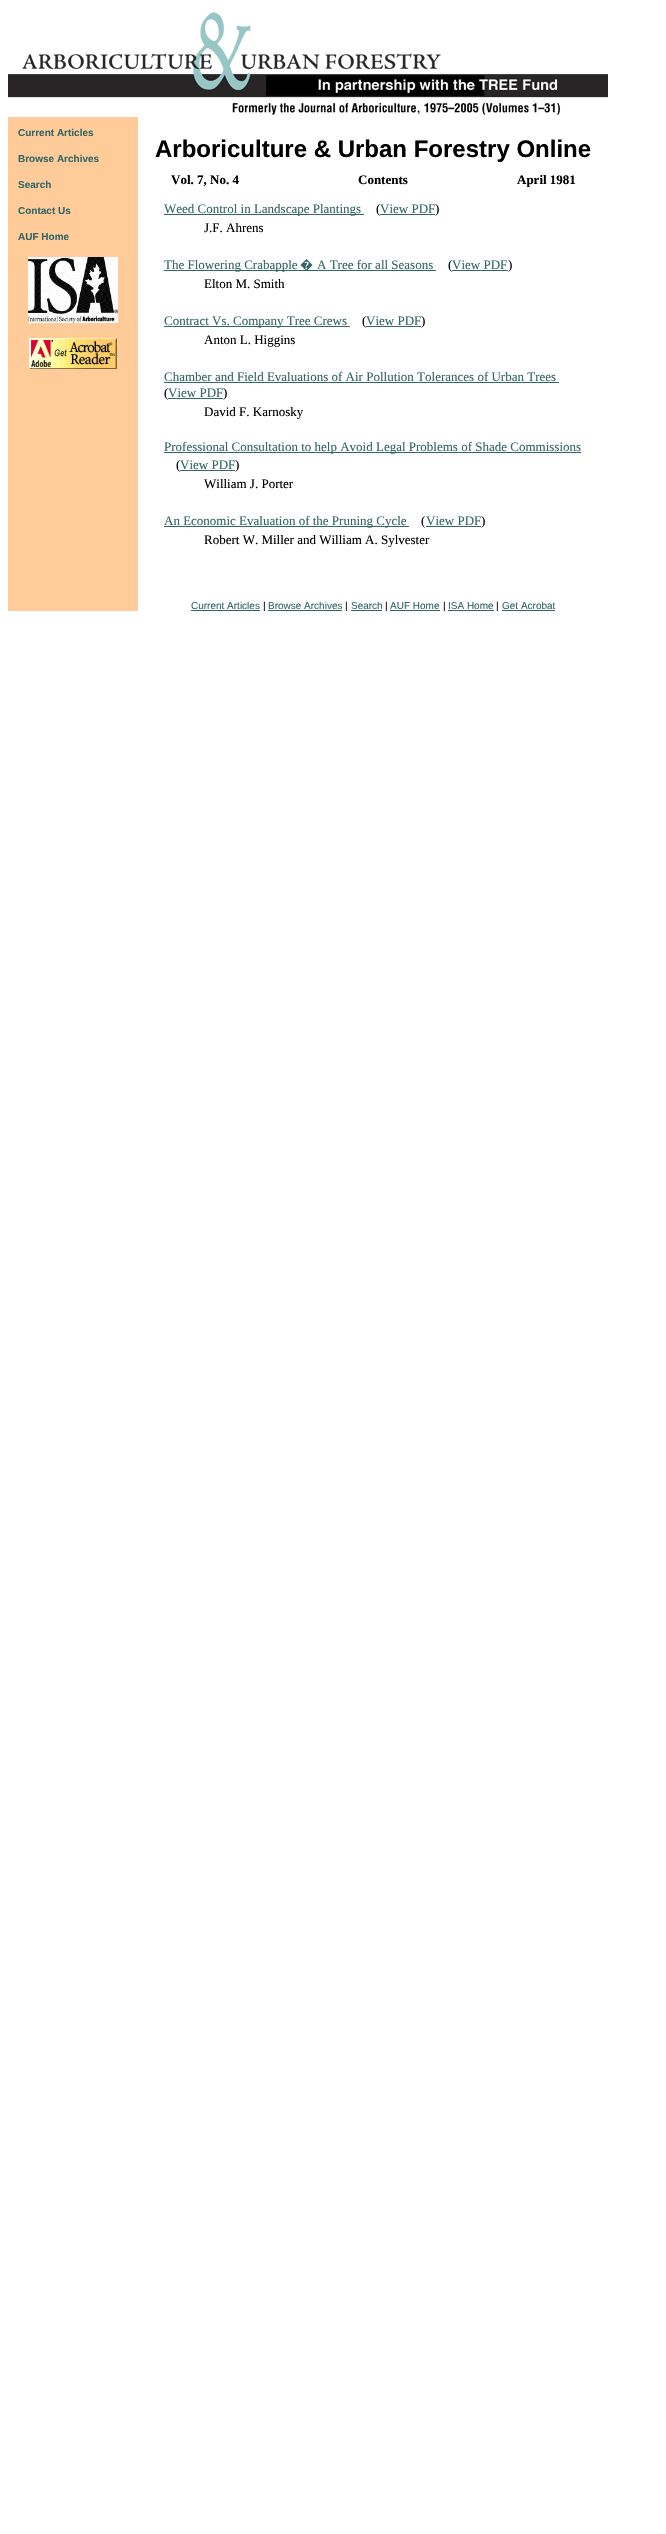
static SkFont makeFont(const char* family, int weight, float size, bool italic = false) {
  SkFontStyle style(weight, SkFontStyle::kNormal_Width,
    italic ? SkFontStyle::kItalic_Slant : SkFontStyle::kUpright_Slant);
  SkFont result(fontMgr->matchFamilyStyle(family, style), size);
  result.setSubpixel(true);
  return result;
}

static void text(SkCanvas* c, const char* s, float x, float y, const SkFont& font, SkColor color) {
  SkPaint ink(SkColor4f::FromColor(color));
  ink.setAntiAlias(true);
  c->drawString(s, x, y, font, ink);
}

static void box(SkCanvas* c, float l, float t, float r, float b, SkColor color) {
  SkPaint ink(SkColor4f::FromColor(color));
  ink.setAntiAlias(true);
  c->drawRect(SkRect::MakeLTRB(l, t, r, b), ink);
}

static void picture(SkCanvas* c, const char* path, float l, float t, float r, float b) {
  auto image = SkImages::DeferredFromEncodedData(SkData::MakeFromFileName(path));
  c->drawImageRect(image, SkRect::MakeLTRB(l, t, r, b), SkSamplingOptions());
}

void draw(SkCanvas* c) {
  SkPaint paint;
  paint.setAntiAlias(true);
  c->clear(0xffffffff);
  picture(c, "img_01.png", 8, 12, 608, 115);
  box(c, 8, 117, 138, 611, 0xffffcc99);
  SkFont face1 = makeFont("Liberation Sans", 700, 10);
  text(c, "Current Articles", 18, 136, face1, 0xff336666);
  text(c, "Browse Archives", 18, 162, face1, 0xff336666);
  text(c, "Search", 18, 188, face1, 0xff336666);
  text(c, "Contact Us", 18, 214, face1, 0xff336666);
  text(c, "AUF Home", 18, 240, face1, 0xff336666);
  picture(c, "img_02.png", 28, 257, 118, 323);
  picture(c, "img_03.png", 29, 338, 117, 369);
  SkFont face2 = makeFont("Liberation Sans", 700, 24);
  text(c, "Arboriculture & Urban Forestry Online", 155, 157, face2, 0xff000000);
  SkFont face3 = makeFont("Liberation Serif", 700, 13);
  text(c, "Vol. 7, No. 4", 171, 184, face3, 0xff000000);
  text(c, "Contents", 358, 184, face3, 0xff000000);
  text(c, "April 1981", 517, 184, face3, 0xff000000);
  box(c, 164, 214, 364, 215, 0xff336666);
  SkFont face4 = makeFont("Liberation Serif", 400, 13);
  text(c, "Weed Control in Landscape Plantings", 164, 213, face4, 0xff336666);
  text(c, "(", 376, 213, face4, 0xff000000);
  box(c, 380, 214, 435, 215, 0xff336666);
  text(c, "View PDF", 380, 213, face4, 0xff336666);
  text(c, ")", 435, 213, face4, 0xff000000);
  text(c, "J.F. Ahrens", 204, 232, face4, 0xff000000);
  box(c, 164, 270, 436, 271, 0xff336666);
  text(c, "The Flowering Crabapple", 164, 269, face4, 0xff336666);
  SkFont face5 = makeFont("Noto Sans", 400, 13);
  text(c, "�", 300, 269, face5, 0xff336666);
  text(c, "A Tree for all Seasons", 317, 269, face4, 0xff336666);
  text(c, "(", 448, 269, face4, 0xff000000);
  box(c, 452, 270, 508, 271, 0xff336666);
  text(c, "View PDF", 452, 269, face4, 0xff336666);
  text(c, ")", 508, 269, face4, 0xff000000);
  text(c, "Elton M. Smith", 204, 288, face4, 0xff000000);
  box(c, 164, 326, 350, 327, 0xff336666);
  text(c, "Contract Vs. Company Tree Crews", 164, 325, face4, 0xff336666);
  text(c, "(", 362, 325, face4, 0xff000000);
  box(c, 366, 326, 421, 327, 0xff336666);
  text(c, "View PDF", 366, 325, face4, 0xff336666);
  text(c, ")", 421, 325, face4, 0xff000000);
  text(c, "Anton L. Higgins", 204, 344, face4, 0xff000000);
  text(c, "Chamber and Field Evaluations of Air Pollution Tolerances of Urban Trees", 164, 381, face4, 0xff336666);
  box(c, 164, 382, 559, 383, 0xff336666);
  text(c, "(", 164, 397, face4, 0xff000000);
  box(c, 168, 398, 223, 399, 0xff336666);
  text(c, "View PDF", 168, 397, face4, 0xff336666);
  text(c, ")", 223, 397, face4, 0xff000000);
  text(c, "David F. Karnosky", 204, 416, face4, 0xff000000);
  box(c, 164, 452, 581, 453, 0xff336666);
  text(c, "Professional Consultation to help Avoid Legal Problems of Shade Commissions", 164, 451, face4, 0xff336666);
  text(c, "(", 176, 469, face4, 0xff000000);
  box(c, 180, 470, 235, 471, 0xff336666);
  text(c, "View PDF", 180, 469, face4, 0xff336666);
  text(c, ")", 235, 469, face4, 0xff000000);
  text(c, "William J. Porter", 204, 488, face4, 0xff000000);
  box(c, 164, 526, 409, 527, 0xff336666);
  text(c, "An Economic Evaluation of the Pruning Cycle", 164, 525, face4, 0xff336666);
  text(c, "(", 421, 525, face4, 0xff000000);
  box(c, 426, 526, 481, 527, 0xff336666);
  text(c, "View PDF", 426, 525, face4, 0xff336666);
  text(c, ")", 481, 525, face4, 0xff000000);
  text(c, "Robert W. Miller and William A. Sylvester", 204, 544, face4, 0xff000000);
  SkFont face6 = makeFont("Liberation Sans", 400, 10);
  text(c, "Current Articles", 191, 609, face6, 0xff336666);
  box(c, 191, 610, 260, 611, 0xff336666);
  text(c, "|", 263, 609, face6, 0xff000000);
  text(c, "Browse Archives", 268, 609, face6, 0xff336666);
  box(c, 268, 610, 342, 611, 0xff336666);
  text(c, "|", 345, 609, face6, 0xff000000);
  text(c, "Search", 351, 609, face6, 0xff336666);
  box(c, 351, 610, 382, 611, 0xff336666);
  text(c, "|", 385, 609, face6, 0xff000000);
  text(c, "AUF Home", 390, 609, face6, 0xff336666);
  box(c, 390, 610, 440, 611, 0xff336666);
  text(c, "|", 443, 609, face6, 0xff000000);
  text(c, "ISA Home", 448, 609, face6, 0xff336666);
  box(c, 448, 610, 494, 611, 0xff336666);
  text(c, "|", 496, 609, face6, 0xff000000);
  text(c, "Get Acrobat", 502, 609, face6, 0xff336666);
  box(c, 502, 610, 555, 611, 0xff336666);
}
